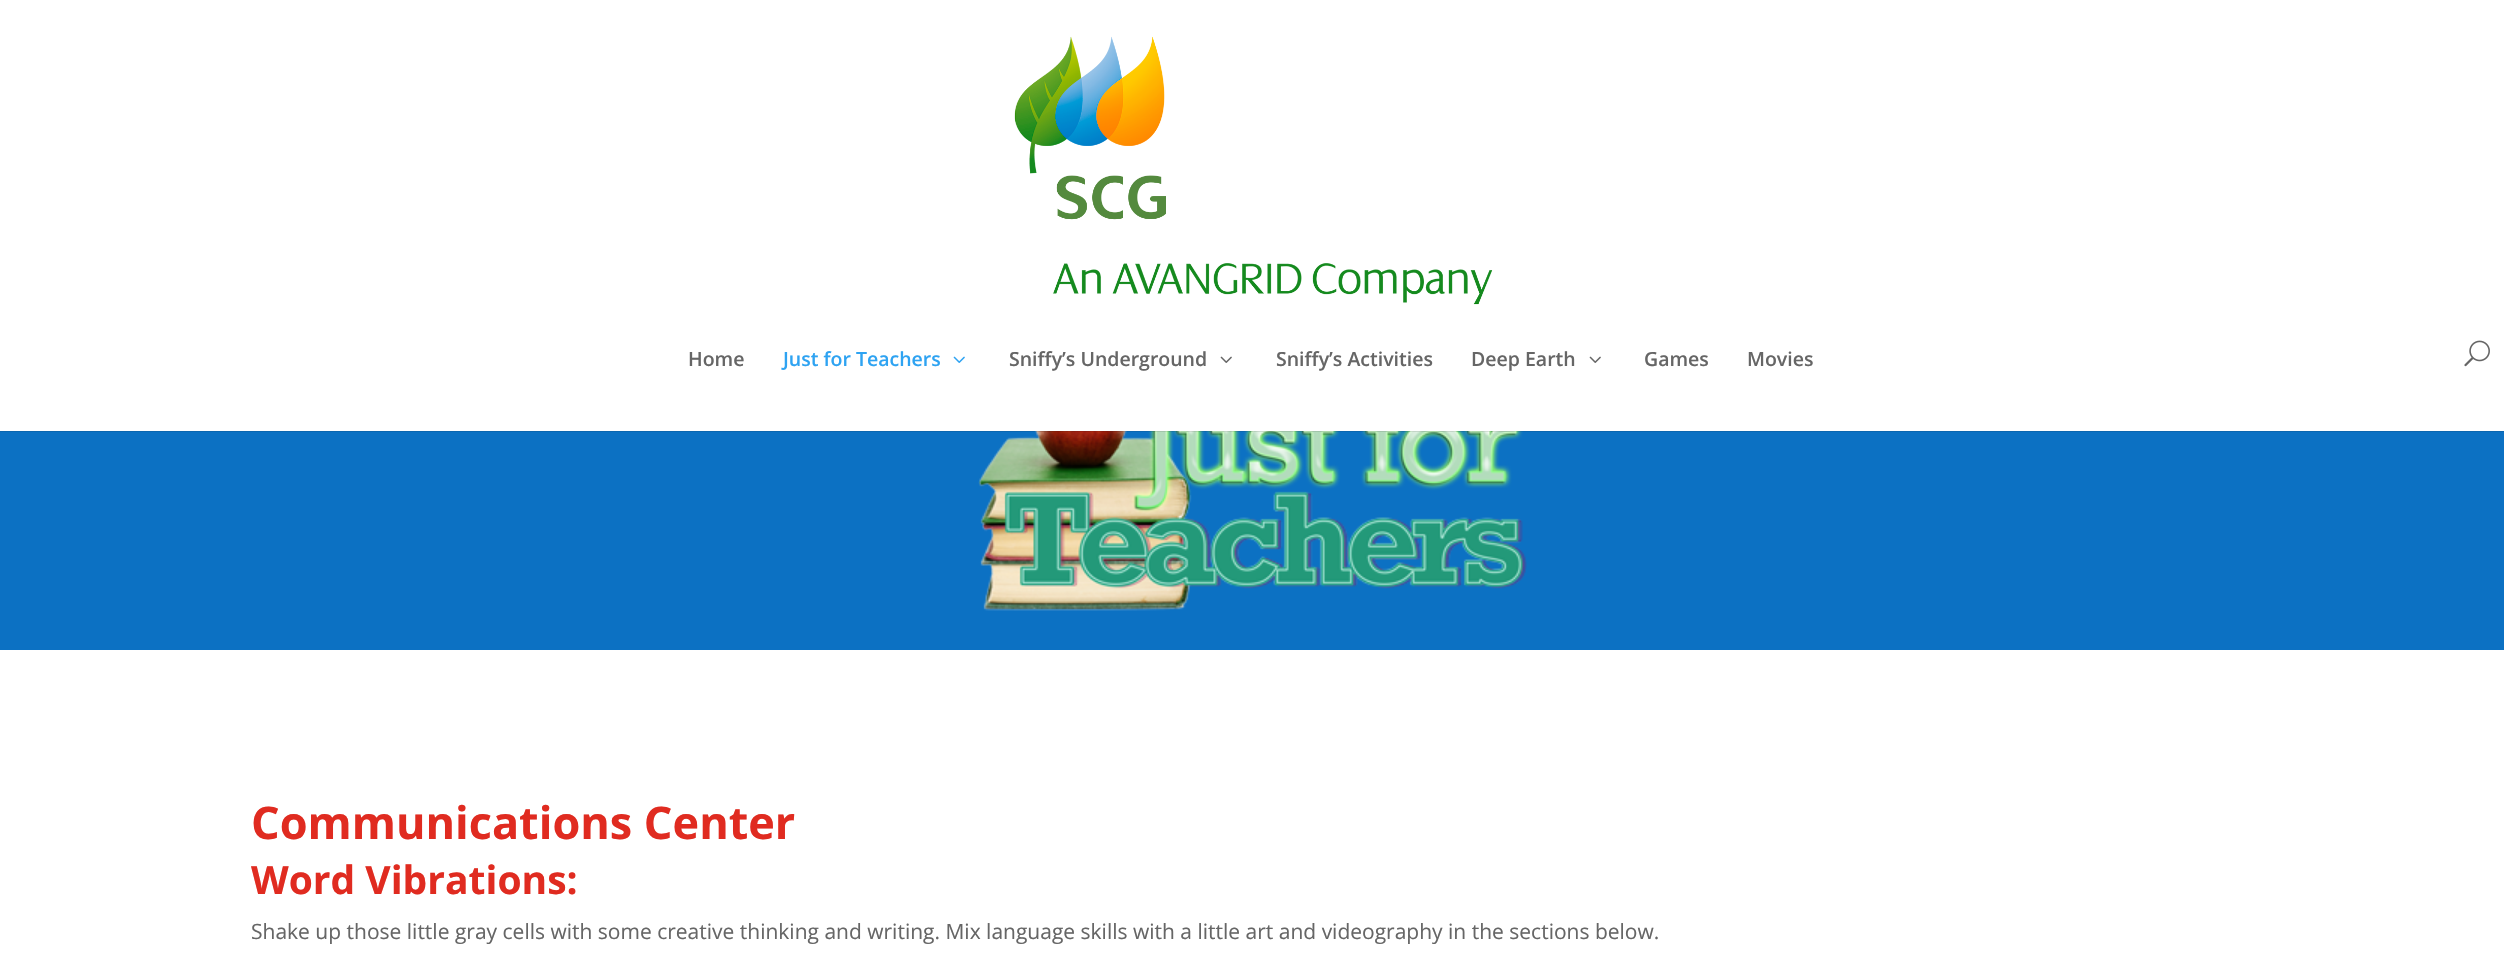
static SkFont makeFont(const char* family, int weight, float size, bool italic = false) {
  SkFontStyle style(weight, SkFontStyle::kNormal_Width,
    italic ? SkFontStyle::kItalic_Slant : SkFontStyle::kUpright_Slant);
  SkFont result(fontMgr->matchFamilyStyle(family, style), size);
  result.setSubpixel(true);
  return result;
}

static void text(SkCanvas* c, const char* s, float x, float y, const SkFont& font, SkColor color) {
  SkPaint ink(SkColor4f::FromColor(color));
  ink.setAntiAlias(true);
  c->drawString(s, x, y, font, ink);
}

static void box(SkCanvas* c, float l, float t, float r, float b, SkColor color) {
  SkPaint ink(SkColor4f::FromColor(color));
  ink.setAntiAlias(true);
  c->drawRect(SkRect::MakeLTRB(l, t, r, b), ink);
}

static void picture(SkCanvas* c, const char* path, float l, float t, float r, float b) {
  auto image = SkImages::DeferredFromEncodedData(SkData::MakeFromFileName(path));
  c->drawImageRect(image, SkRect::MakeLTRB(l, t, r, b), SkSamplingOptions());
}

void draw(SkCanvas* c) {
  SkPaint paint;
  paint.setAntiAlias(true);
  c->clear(0xffffffff);
  box(c, 0, 431, 2504, 650, 0xff0c71c3);
  picture(c, "img_05.png", 978, 431, 1527, 611);
  box(c, 0, 431, 2504, 432, 0x1a000000);
  picture(c, "img_01.png", 1014, 36, 1493, 305);
  SkFont face1 = makeFont("Open Sans", 600, 19.5f);
  text(c, "Home", 688, 366, face1, 0xff666666);
  text(c, "Just for Teachers", 783, 366, face1, 0xff2ea3f2);
  picture(c, "img_02.png", 953, 356, 965, 363);
  text(c, "Sniffy’s Underground", 1009, 366, face1, 0xff666666);
  picture(c, "img_03.png", 1220, 356, 1232, 363);
  text(c, "Sniffy’s Activities", 1276, 366, face1, 0xff666666);
  text(c, "Deep Earth", 1471, 366, face1, 0xff666666);
  picture(c, "img_03.png", 1589, 356, 1601, 363);
  text(c, "Games", 1644, 366, face1, 0xff666666);
  text(c, "Movies", 1747, 366, face1, 0xff666666);
  picture(c, "img_04.png", 2464, 340, 2490, 367);
  SkFont face2 = makeFont("Open Sans", 700, 45);
  text(c, "Communications Center", 251, 839, face2, 0xffe02b20);
  SkFont face3 = makeFont("Open Sans", 700, 39);
  text(c, "Word Vibrations:", 251, 894, face3, 0xffe02b20);
  SkFont face4 = makeFont("Open Sans", 400, 21);
  text(c, "Shake up those little gray cells with some creative thinking and writing. Mix language skills with a little art and videography in the sections below.", 251, 939, face4, 0xff666666);
}
